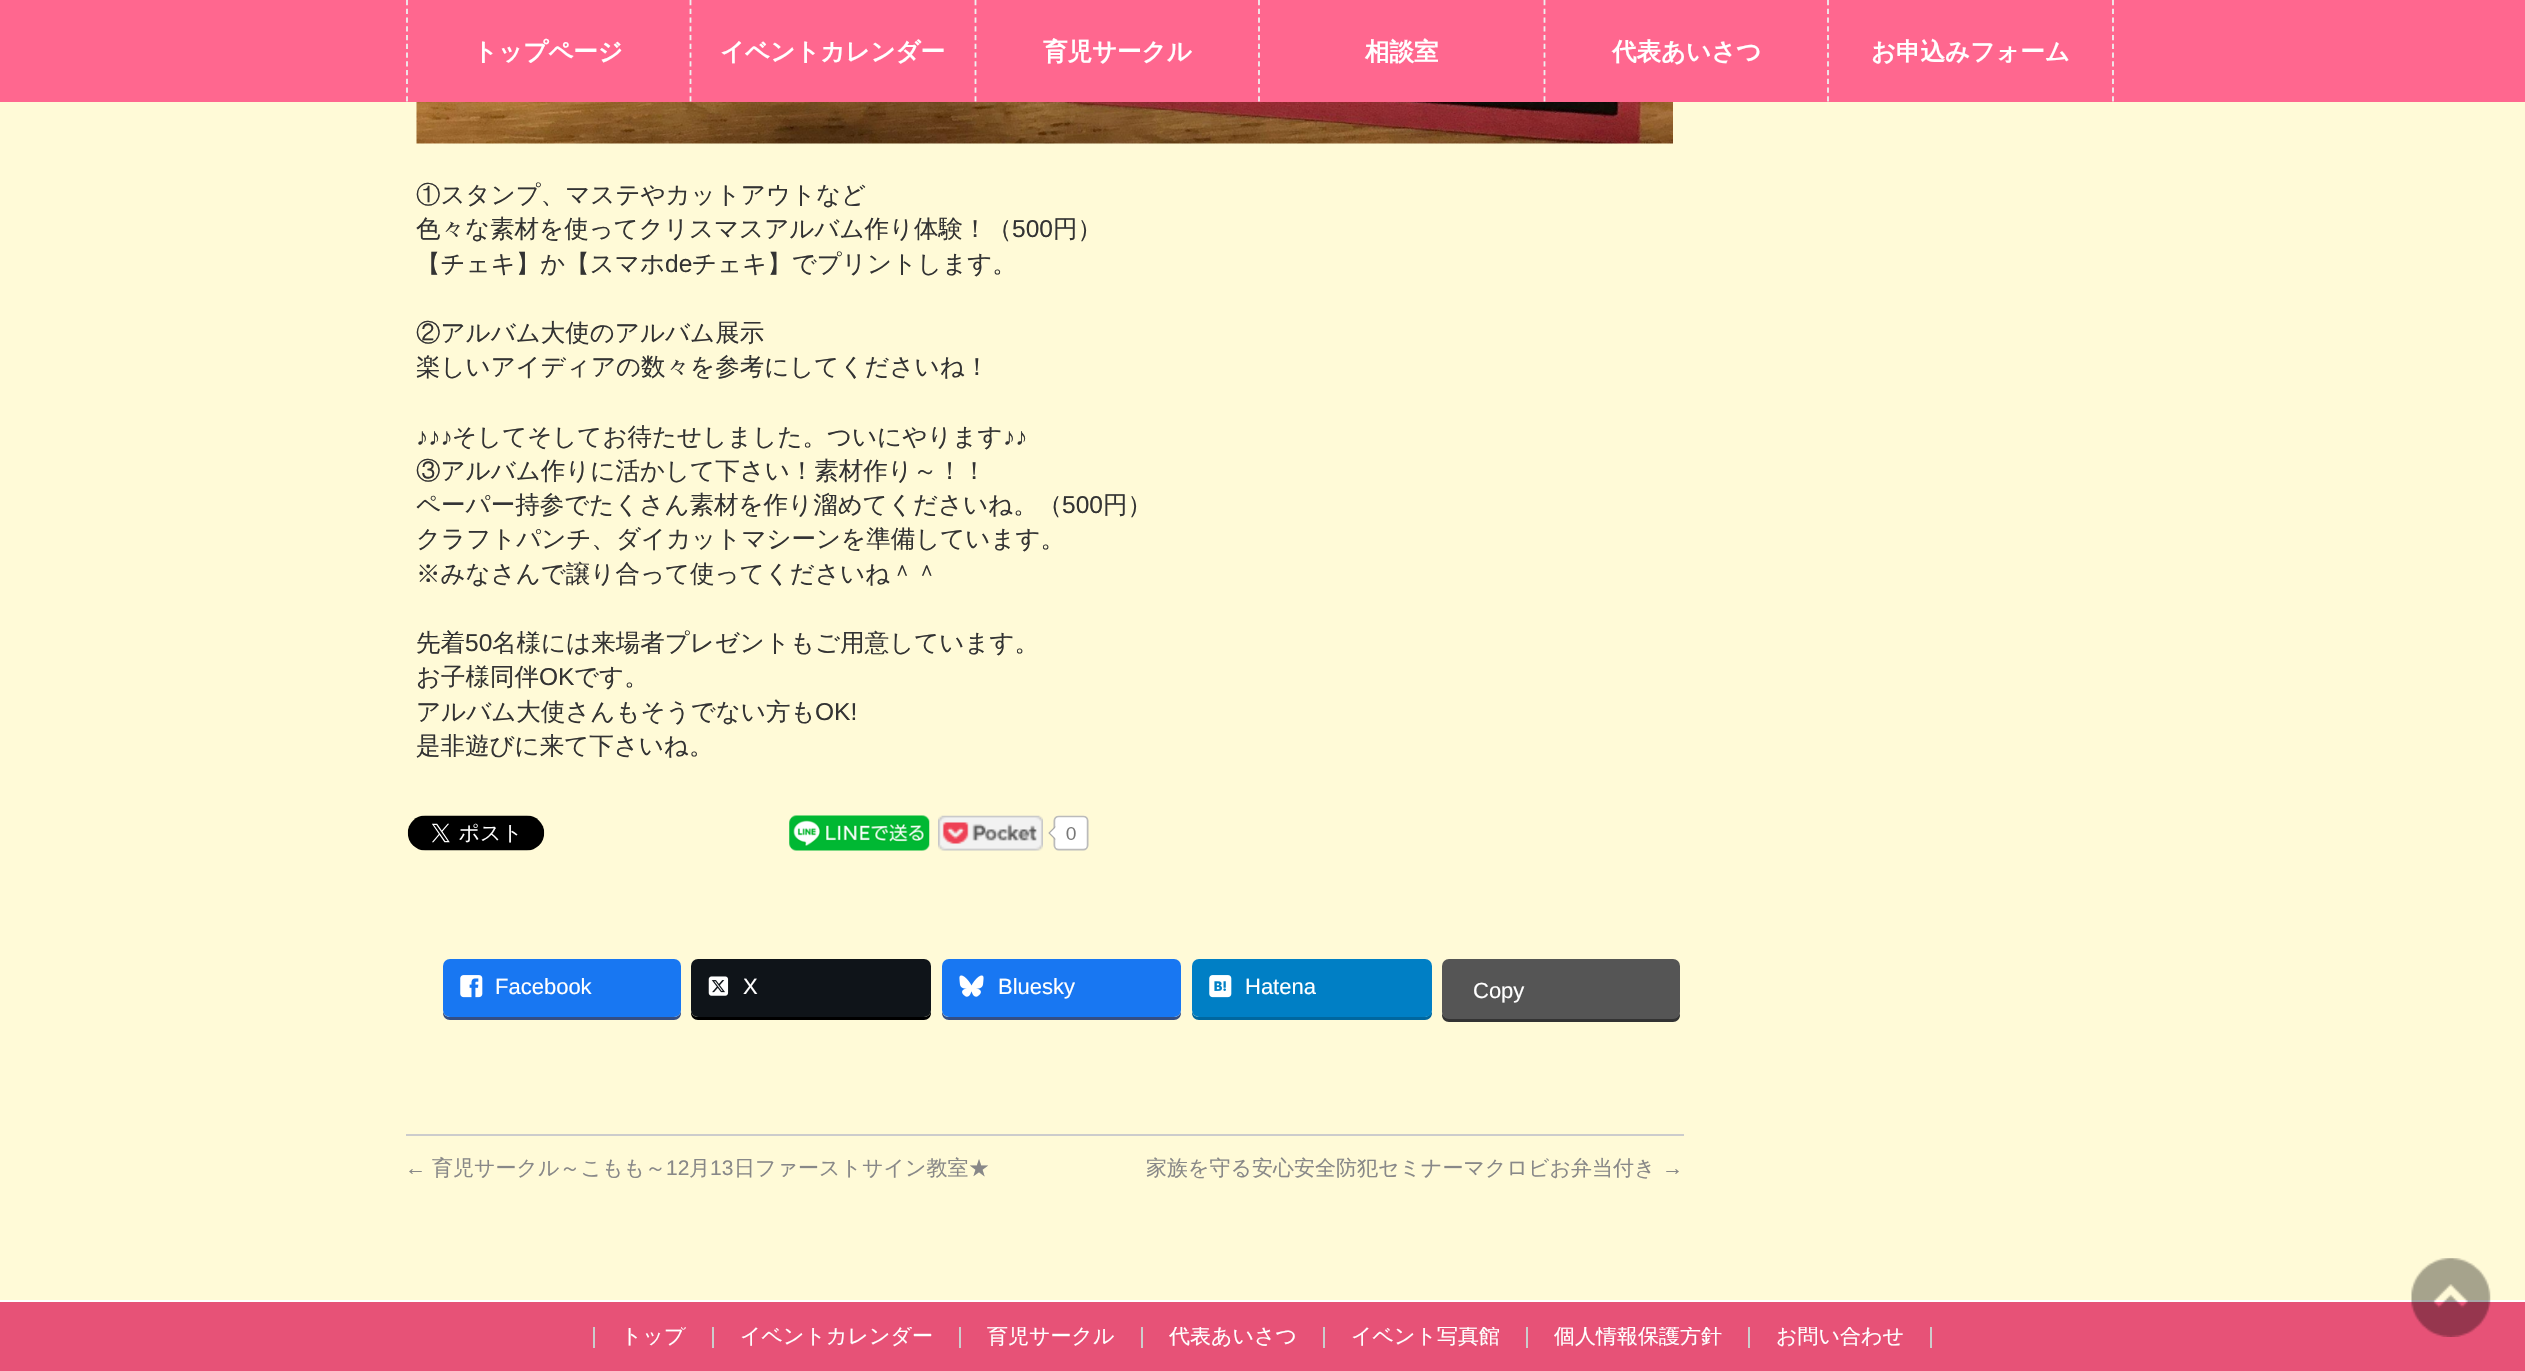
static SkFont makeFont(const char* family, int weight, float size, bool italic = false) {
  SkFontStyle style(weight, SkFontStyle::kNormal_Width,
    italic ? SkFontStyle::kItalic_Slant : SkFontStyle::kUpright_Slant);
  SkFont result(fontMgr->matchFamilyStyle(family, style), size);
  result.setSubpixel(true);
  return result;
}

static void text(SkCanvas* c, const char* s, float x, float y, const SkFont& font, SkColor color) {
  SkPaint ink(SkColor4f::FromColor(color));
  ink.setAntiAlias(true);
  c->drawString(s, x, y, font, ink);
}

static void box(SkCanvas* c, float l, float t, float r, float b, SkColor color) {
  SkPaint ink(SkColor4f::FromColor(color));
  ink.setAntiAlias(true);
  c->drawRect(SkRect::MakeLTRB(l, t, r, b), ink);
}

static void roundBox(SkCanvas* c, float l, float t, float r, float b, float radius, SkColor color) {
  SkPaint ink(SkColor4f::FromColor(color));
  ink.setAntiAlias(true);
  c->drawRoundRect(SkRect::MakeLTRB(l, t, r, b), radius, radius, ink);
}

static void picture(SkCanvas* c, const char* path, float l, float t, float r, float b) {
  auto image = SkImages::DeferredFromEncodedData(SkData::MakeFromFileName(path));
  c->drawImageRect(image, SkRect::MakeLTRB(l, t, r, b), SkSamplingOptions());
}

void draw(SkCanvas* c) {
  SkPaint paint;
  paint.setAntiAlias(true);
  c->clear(0xfffffad7);
  box(c, 0, 0, 2525, 102, 0xffff678f);
  paint.setStyle(SkPaint::kStroke_Style);
  paint.setStrokeWidth(1.8f);
  paint.setColor(0xffefefef);
  paint.setPathEffect(SkDashPathEffect::Make({{5.25f, 3.5f}}, 0));
  c->drawPath(SkPathBuilder().moveTo(690.5f, 0).lineTo(690.5f, 101.5f).detach(), paint);
  paint.setPathEffect(nullptr);
  paint.setPathEffect(SkDashPathEffect::Make({{5.25f, 3.5f}}, 0));
  c->drawPath(SkPathBuilder().moveTo(407, 0).lineTo(407, 101.5f).detach(), paint);
  paint.setPathEffect(nullptr);
  SkFont face1 = makeFont("WenQuanYi Zen Hei", 700, 24.5f);
  text(c, "トップページ", 473, 60, face1, 0xffffffff);
  paint.setPathEffect(SkDashPathEffect::Make({{5.25f, 3.5f}}, 0));
  c->drawPath(SkPathBuilder().moveTo(975.5f, 0).lineTo(975.5f, 101.5f).detach(), paint);
  paint.setPathEffect(nullptr);
  text(c, "イベントカレンダー", 720, 60, face1, 0xffffffff);
  paint.setPathEffect(SkDashPathEffect::Make({{5.25f, 3.5f}}, 0));
  c->drawPath(SkPathBuilder().moveTo(1259, 0).lineTo(1259, 101.5f).detach(), paint);
  paint.setPathEffect(nullptr);
  text(c, "育児サークル", 1043, 60, face1, 0xffffffff);
  paint.setPathEffect(SkDashPathEffect::Make({{5.25f, 3.5f}}, 0));
  c->drawPath(SkPathBuilder().moveTo(1544.5f, 0).lineTo(1544.5f, 101.5f).detach(), paint);
  paint.setPathEffect(nullptr);
  text(c, "相談室", 1365, 60, face1, 0xffffffff);
  paint.setPathEffect(SkDashPathEffect::Make({{5.25f, 3.5f}}, 0));
  c->drawPath(SkPathBuilder().moveTo(1828, 0).lineTo(1828, 101.5f).detach(), paint);
  paint.setPathEffect(nullptr);
  text(c, "代表あいさつ", 1612, 60, face1, 0xffffffff);
  paint.setPathEffect(SkDashPathEffect::Make({{5.25f, 3.5f}}, 0));
  c->drawPath(SkPathBuilder().moveTo(2113, 0).lineTo(2113, 101.5f).detach(), paint);
  paint.setPathEffect(nullptr);
  text(c, "お申込みフォーム", 1871, 60, face1, 0xffffffff);
  picture(c, "img_01.png", 416, 102, 1673, 144);
  SkFont face2 = makeFont("WenQuanYi Zen Hei", 500, 24.5f);
  text(c, "①スタンプ、マステやカットアウトなど", 416, 203, face2, 0xff333333);
  text(c, "色々な素材を使ってクリスマスアルバム作り体験！（", 416, 237, face2, 0xff333333);
  SkFont face3 = makeFont("Liberation Sans", 400, 24.5f);
  text(c, "500", 1012, 237, face3, 0xff333333);
  text(c, "円）", 1053, 237, face2, 0xff333333);
  text(c, "【チェキ】か【スマホ", 416, 272, face2, 0xff333333);
  text(c, "de", 665, 272, face3, 0xff333333);
  text(c, "チェキ】でプリントします。", 692, 272, face2, 0xff333333);
  text(c, "②アルバム大使のアルバム展示", 416, 341, face2, 0xff333333);
  text(c, "楽しいアイディアの数々を参考にしてくださいね！", 416, 375, face2, 0xff333333);
  text(c, "♪♪♪", 416, 445, face3, 0xff333333);
  text(c, "そしてそしてお待たせしました。ついにやります", 452, 445, face2, 0xff333333);
  text(c, "♪♪", 1003, 445, face3, 0xff333333);
  text(c, "③アルバム作りに活かして下さい！素材作り～！！", 416, 479, face2, 0xff333333);
  text(c, "ペーパー持参でたくさん素材を作り溜めてくださいね。（", 416, 513, face2, 0xff333333);
  text(c, "500", 1062, 513, face3, 0xff333333);
  text(c, "円）", 1103, 513, face2, 0xff333333);
  text(c, "クラフトパンチ、ダイカットマシーンを準備しています。", 416, 547, face2, 0xff333333);
  text(c, "※みなさんで譲り合って使ってくださいね＾＾", 416, 582, face2, 0xff333333);
  text(c, "先着", 416, 651, face2, 0xff333333);
  text(c, "50", 465, 651, face3, 0xff333333);
  text(c, "名様には来場者プレゼントもご用意しています。", 492, 651, face2, 0xff333333);
  text(c, "お子様同伴", 416, 685, face2, 0xff333333);
  text(c, "OK", 539, 685, face3, 0xff333333);
  text(c, "です。", 574, 685, face2, 0xff333333);
  text(c, "アルバム大使さんもそうでない方も", 416, 720, face2, 0xff333333);
  text(c, "OK!", 815, 720, face3, 0xff333333);
  text(c, "是非遊びに来て下さいね。", 416, 754, face2, 0xff333333);
  picture(c, "img_02.png", 407, 815, 545, 851);
  picture(c, "img_03.png", 789, 815, 930, 851);
  picture(c, "img_04.png", 938, 815, 1089, 851);
  paint.setStyle(SkPaint::kFill_Style);
  paint.setColor(0xff344e84);
  c->drawPath(SkPathBuilder().moveTo(443, 1012).lineTo(443, 1013).cubicTo(443, 1017, 446, 1020, 450, 1020).lineTo(674, 1020).cubicTo(678, 1020, 681, 1017, 681, 1013).lineTo(681, 968).lineTo(681, 1010).cubicTo(681, 1014, 678, 1017, 674, 1017).lineTo(450, 1017).cubicTo(447, 1017, 444, 1015, 443, 1012).close().detach(), paint);
  roundBox(c, 443, 959, 681, 1017, 7, 0xff1877f2);
  picture(c, "img_05.png", 460, 975, 483, 998);
  SkFont face4 = makeFont("Liberation Sans", 400, 22);
  text(c, "Facebook", 495, 994, face4, 0xffffffff);
  paint.setColor(0xff000000);
  c->drawPath(SkPathBuilder().moveTo(691, 968).lineTo(691, 1013).cubicTo(691, 1017, 694, 1020, 698, 1020).lineTo(924, 1020).cubicTo(928, 1020, 931, 1017, 931, 1013).lineTo(931, 1010).cubicTo(931, 1014, 928, 1017, 924, 1017).lineTo(698, 1017).cubicTo(694, 1017, 691, 1014, 691, 1010).close().detach(), paint);
  roundBox(c, 691, 959, 931, 1017, 7, 0xff0f1419);
  picture(c, "img_06.png", 708, 976, 729, 996);
  text(c, "X", 743, 994, face4, 0xffffffff);
  paint.setColor(0xff344e84);
  c->drawPath(SkPathBuilder().moveTo(942, 1012).lineTo(942, 1013).cubicTo(942, 1017, 945, 1020, 949, 1020).lineTo(1174, 1020).cubicTo(1178, 1020, 1181, 1017, 1181, 1013).lineTo(1181, 1012).cubicTo(1180, 1015, 1177, 1017, 1174, 1017).lineTo(948, 1017).cubicTo(946, 1017, 943, 1015, 942, 1012).close().detach(), paint);
  roundBox(c, 942, 959, 1181, 1017, 7, 0xff1877f2);
  picture(c, "img_07.png", 959, 975, 984, 997);
  text(c, "Bluesky", 998, 994, face4, 0xffffffff);
  paint.setColor(0xff00679f);
  c->drawPath(SkPathBuilder().moveTo(1192, 1012).lineTo(1192, 1013).cubicTo(1192, 1017, 1195, 1020, 1199, 1020).lineTo(1425, 1020).cubicTo(1429, 1020, 1432, 1017, 1432, 1013).lineTo(1432, 970).lineTo(1432, 967).lineTo(1432, 1010).cubicTo(1432, 1014, 1428, 1017, 1424, 1017).lineTo(1199, 1017).cubicTo(1196, 1017, 1193, 1015, 1192, 1012).close().detach(), paint);
  roundBox(c, 1192, 959, 1432, 1017, 7, 0xff007fc5);
  picture(c, "img_08.png", 1209, 975, 1232, 998);
  text(c, "Hatena", 1245, 994, face4, 0xffffffff);
  paint.setColor(0xff333333);
  c->drawPath(SkPathBuilder().moveTo(1442, 1012).lineTo(1442, 1015).cubicTo(1442, 1019, 1445, 1022, 1449, 1022).lineTo(1673, 1022).cubicTo(1677, 1022, 1680, 1019, 1680, 1015).lineTo(1680, 1012).cubicTo(1680, 1015, 1677, 1018, 1673, 1018).lineTo(1449, 1018).cubicTo(1445, 1018, 1442, 1015, 1442, 1012).close().detach(), paint);
  roundBox(c, 1442, 959, 1680, 1019, 7, 0xff555555);
  text(c, "Copy", 1473, 998, face4, 0xffffffff);
  box(c, 406, 1134, 1684, 1136, 0xffcccccc);
  SkFont face5 = makeFont("Liberation Sans", 400, 21);
  text(c, "←", 405, 1175, face5, 0xff888888);
  SkFont face6 = makeFont("WenQuanYi Zen Hei", 500, 21);
  text(c, "育児サークル～こもも～", 432, 1175, face6, 0xff888888);
  text(c, "12", 666, 1175, face5, 0xff888888);
  text(c, "月", 689, 1175, face6, 0xff888888);
  text(c, "13", 710, 1175, face5, 0xff888888);
  text(c, "日ファーストサイン教室★", 734, 1175, face6, 0xff888888);
  text(c, "家族を守る安心安全防犯セミナーマクロビお弁当付き", 1146, 1175, face6, 0xff888888);
  text(c, "→", 1662, 1175, face5, 0xff888888);
  box(c, 0, 1302, 2525, 1371, 0xffe75277);
  box(c, 0, 1300, 2525, 1302, 0xffffffff);
  box(c, 712, 1327, 714, 1348, 0xffcccccc);
  box(c, 593, 1327, 595, 1348, 0xffcccccc);
  c->save();
  c->clipRect(SkRect::MakeLTRB(595, 1327, 712, 1348));
  text(c, "トップ", 621, 1343, face6, 0xffffffff);
  c->restore();
  box(c, 959, 1327, 961, 1348, 0xffcccccc);
  c->save();
  c->clipRect(SkRect::MakeLTRB(714, 1327, 959, 1348));
  text(c, "イベントカレンダー", 740, 1343, face6, 0xffffffff);
  c->restore();
  box(c, 1141, 1327, 1143, 1348, 0xffcccccc);
  c->save();
  c->clipRect(SkRect::MakeLTRB(961, 1327, 1141, 1348));
  text(c, "育児サークル", 987, 1343, face6, 0xffffffff);
  c->restore();
  box(c, 1323, 1327, 1325, 1348, 0xffcccccc);
  c->save();
  c->clipRect(SkRect::MakeLTRB(1143, 1327, 1323, 1348));
  text(c, "代表あいさつ", 1169, 1343, face6, 0xffffffff);
  c->restore();
  box(c, 1526, 1327, 1528, 1348, 0xffcccccc);
  c->save();
  c->clipRect(SkRect::MakeLTRB(1325, 1327, 1526, 1348));
  text(c, "イベント写真館", 1351, 1343, face6, 0xffffffff);
  c->restore();
  box(c, 1748, 1327, 1750, 1348, 0xffcccccc);
  c->save();
  c->clipRect(SkRect::MakeLTRB(1528, 1327, 1748, 1348));
  text(c, "個人情報保護方針", 1554, 1343, face6, 0xffffffff);
  c->restore();
  box(c, 1930, 1327, 1932, 1348, 0xffcccccc);
  c->save();
  c->clipRect(SkRect::MakeLTRB(1750, 1327, 1930, 1348));
  text(c, "お問い合わせ", 1776, 1343, face6, 0xffffffff);
  c->restore();
  picture(c, "img_09.png", 2411, 1258, 2491, 1337);
}
